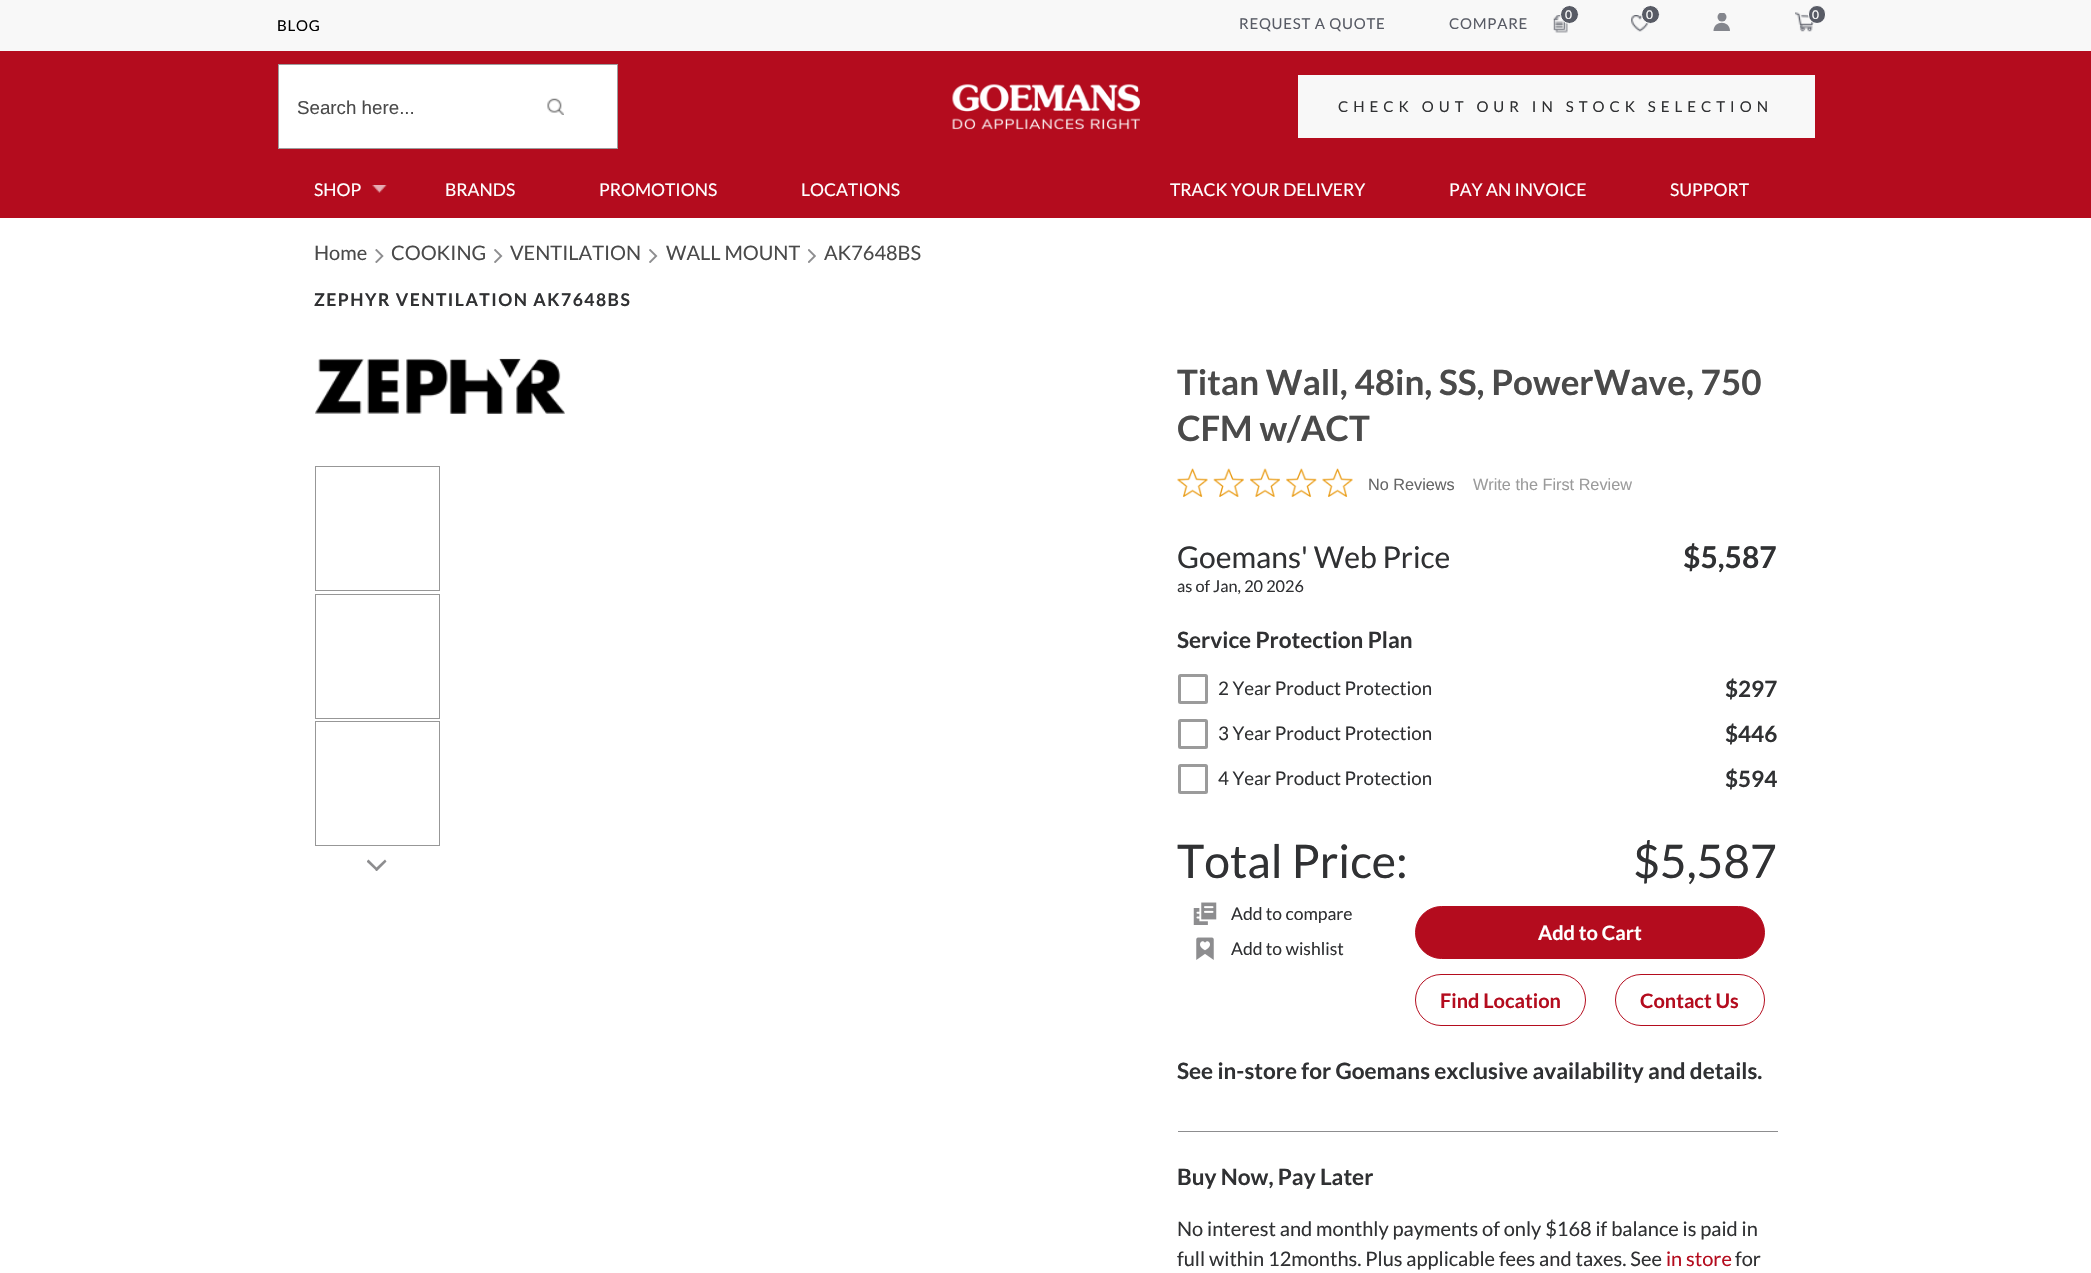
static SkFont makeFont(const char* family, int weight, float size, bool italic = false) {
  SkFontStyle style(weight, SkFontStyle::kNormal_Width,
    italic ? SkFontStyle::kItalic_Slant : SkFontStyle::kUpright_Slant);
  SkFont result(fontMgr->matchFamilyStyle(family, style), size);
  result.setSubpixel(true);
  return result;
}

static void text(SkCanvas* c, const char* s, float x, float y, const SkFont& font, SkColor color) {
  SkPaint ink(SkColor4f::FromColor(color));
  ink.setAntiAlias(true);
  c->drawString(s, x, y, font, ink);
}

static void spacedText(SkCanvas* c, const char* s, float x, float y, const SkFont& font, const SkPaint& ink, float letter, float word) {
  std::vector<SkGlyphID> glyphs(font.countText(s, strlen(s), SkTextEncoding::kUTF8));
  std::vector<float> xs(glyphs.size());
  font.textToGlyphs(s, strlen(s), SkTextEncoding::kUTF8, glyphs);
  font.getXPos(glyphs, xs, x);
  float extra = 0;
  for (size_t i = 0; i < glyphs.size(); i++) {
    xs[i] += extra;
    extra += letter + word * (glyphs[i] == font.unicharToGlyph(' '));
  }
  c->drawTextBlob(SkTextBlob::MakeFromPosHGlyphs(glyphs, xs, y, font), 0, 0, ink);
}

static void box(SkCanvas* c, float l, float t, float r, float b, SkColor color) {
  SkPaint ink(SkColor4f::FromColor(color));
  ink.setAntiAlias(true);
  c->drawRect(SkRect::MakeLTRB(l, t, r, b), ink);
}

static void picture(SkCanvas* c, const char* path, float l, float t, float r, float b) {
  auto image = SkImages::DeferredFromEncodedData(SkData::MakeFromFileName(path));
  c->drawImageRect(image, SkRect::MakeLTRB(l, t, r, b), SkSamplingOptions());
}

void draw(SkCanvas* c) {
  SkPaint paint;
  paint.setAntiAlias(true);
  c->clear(0xffffffff);
  box(c, 0, 0, 2091, 51, 0xfff8f8f8);
  SkFont face1 = makeFont("Lato", 400, 15);
  paint.setColor(0xff000000);
  spacedText(c, "BLOG", 277, 31, face1, paint, 0.75f, 0);
  paint.setColor(0xff585b65);
  spacedText(c, "REQUEST A QUOTE", 1239, 29, face1, paint, 0.75f, 0);
  spacedText(c, "COMPARE", 1449, 29, face1, paint, 0.75f, 0);
  picture(c, "img_01.png", 1553, 15, 1568, 33);
  c->drawCircle(1569.5f, 14.5f, 9, paint);
  paint.setStyle(SkPaint::kStroke_Style);
  paint.setStrokeWidth(1);
  paint.setColor(0xffffffff);
  c->drawCircle(1569.5f, 14.5f, 9, paint);
  SkFont face2 = makeFont("Lato", 400, 12);
  paint.setStyle(SkPaint::kFill_Style);
  spacedText(c, "0", 1565, 19, face2, paint, 0.75f, 0);
  picture(c, "img_02.png", 1631, 15, 1649, 32);
  paint.setColor(0xff585b65);
  c->drawCircle(1650.5f, 14.5f, 9, paint);
  paint.setStyle(SkPaint::kStroke_Style);
  paint.setColor(0xffffffff);
  c->drawCircle(1650.5f, 14.5f, 9, paint);
  paint.setStyle(SkPaint::kFill_Style);
  spacedText(c, "0", 1646, 19, face2, paint, 0.75f, 0);
  c->save();
  c->clipRect(SkRect::MakeLTRB(1713, 13, 1731, 31));
  paint.setColor(0xff84868d);
  c->drawCircle(1722, 17, 4.5f, paint);
  c->restore();
  c->drawPath(SkPathBuilder().moveTo(1730, 31).cubicTo(1730, 20, 1713.5f, 20, 1713.5f, 31).close().detach(), paint);
  picture(c, "img_03.png", 1795, 12, 1814, 32);
  paint.setColor(0xff585b65);
  c->drawRoundRect(SkRect::MakeLTRB(1808.5f, 5.5f, 1825.5f, 23.5f), 8.5f, 8.5f, paint);
  paint.setStyle(SkPaint::kStroke_Style);
  paint.setColor(0xffffffff);
  c->drawRoundRect(SkRect::MakeLTRB(1808.5f, 5.5f, 1825.5f, 23.5f), 8.5f, 8.5f, paint);
  paint.setStyle(SkPaint::kFill_Style);
  spacedText(c, "0", 1812, 19, face2, paint, 0.75f, 0);
  box(c, 0, 51, 2091, 218, 0xffb40c1e);
  c->drawRect(SkRect::MakeLTRB(278.5f, 64.5f, 617.5f, 148.5f), paint);
  paint.setStyle(SkPaint::kStroke_Style);
  paint.setColor(0xff9d9d9e);
  c->drawRect(SkRect::MakeLTRB(278.5f, 64.5f, 617.5f, 148.5f), paint);
  SkFont face3 = makeFont("Liberation Sans", 400, 18.75f);
  text(c, "Search here...", 297, 114, face3, 0xff4a4a4a);
  picture(c, "img_04.png", 547, 98, 564, 115);
  picture(c, "img_05.png", 952, 84, 1140, 130);
  box(c, 1298, 75, 1815, 138, 0xfff8f8f8);
  paint.setStyle(SkPaint::kFill_Style);
  paint.setColor(0xff303133);
  spacedText(c, "CHECK OUT OUR IN STOCK SELECTION", 1338, 112, face1, paint, 5, 0);
  SkFont face4 = makeFont("Lato", 400, 17.5f);
  text(c, "SHOP", 314, 196, face4, 0xffffffff);
  picture(c, "img_06.png", 372, 185, 387, 193);
  text(c, "BRANDS", 445, 196, face4, 0xffffffff);
  text(c, "PROMOTIONS", 599, 196, face4, 0xffffffff);
  text(c, "LOCATIONS", 801, 196, face4, 0xffffffff);
  text(c, "TRACK YOUR DELIVERY", 1170, 196, face4, 0xffffffff);
  text(c, "PAY AN INVOICE", 1449, 196, face4, 0xffffffff);
  text(c, "SUPPORT", 1670, 196, face4, 0xffffffff);
  SkFont face5 = makeFont("Lato", 400, 20);
  text(c, "Home", 314, 260, face5, 0xff4a4a4a);
  picture(c, "img_07.png", 375, 249, 384, 263);
  text(c, "COOKING", 391, 260, face5, 0xff4a4a4a);
  picture(c, "img_08.png", 494, 249, 503, 263);
  text(c, "VENTILATION", 510, 260, face5, 0xff4a4a4a);
  picture(c, "img_08.png", 649, 249, 658, 263);
  text(c, "WALL MOUNT", 666, 260, face5, 0xff4a4a4a);
  picture(c, "img_09.png", 808, 249, 816, 263);
  text(c, "AK7648BS", 824, 260, face5, 0xff4a4a4a);
  SkFont face6 = makeFont("Lato", 700, 17.5f);
  spacedText(c, "ZEPHYR VENTILATION AK7648BS", 314, 306, face6, paint, 1.5f, 0);
  picture(c, "img_10.png", 315, 358, 565, 414);
  paint.setStyle(SkPaint::kStroke_Style);
  paint.setColor(0xff979797);
  c->drawRect(SkRect::MakeLTRB(315.5f, 466.5f, 439.5f, 590.5f), paint);
  c->drawRect(SkRect::MakeLTRB(315.5f, 594.5f, 439.5f, 718.5f), paint);
  c->drawRect(SkRect::MakeLTRB(315.5f, 721.5f, 439.5f, 845.5f), paint);
  paint.setStyle(SkPaint::kFill_Style);
  paint.setColor(0xff8d8d8f);
  c->drawPath(SkPathBuilder().moveTo(375, 869.5f).lineTo(367, 862).lineTo(367, 861).lineTo(368.5f, 859.5f).lineTo(376.5f, 867.5f).lineTo(385, 859.5f).lineTo(386.5f, 861.5f).lineTo(377, 871).lineTo(376, 871).close().detach(), paint);
  SkFont face7 = makeFont("Lato", 700, 35);
  text(c, "Titan Wall, 48in, SS, PowerWave, 750", 1177, 395, face7, 0xff4a4a4a);
  text(c, "CFM w/ACT", 1177, 441, face7, 0xff4a4a4a);
  picture(c, "img_11.png", 1177, 468, 1208, 497);
  picture(c, "img_12.png", 1213, 468, 1244, 497);
  picture(c, "img_13.png", 1250, 468, 1280, 497);
  picture(c, "img_14.png", 1286, 468, 1317, 497);
  picture(c, "img_15.png", 1322, 468, 1353, 497);
  SkFont face8 = makeFont("Liberation Sans", 400, 16.25f);
  text(c, "No Reviews", 1368, 490, face8, 0xff666666);
  text(c, "Write the First Review", 1473, 490, face8, 0xff9b9b9b);
  SkFont face9 = makeFont("Lato", 400, 30);
  text(c, "Goemans' Web Price", 1177, 568, face9, 0xff303133);
  SkFont face10 = makeFont("Lato", 400, 16.25f);
  text(c, "as of Jan, 20 2026", 1177, 592, face10, 0xff303133);
  SkFont face11 = makeFont("Lato", 700, 30);
  text(c, "$5,587", 1683, 568, face11, 0xff303133);
  SkFont face12 = makeFont("Lato", 700, 22.5f);
  text(c, "Service Protection Plan", 1177, 648, face12, 0xff303133);
  paint.setStyle(SkPaint::kStroke_Style);
  paint.setStrokeWidth(3);
  paint.setColor(0xff9b9b9b);
  c->drawRoundRect(SkRect::MakeLTRB(1179.5f, 675.5f, 1206.5f, 702.5f), 1, 1, paint);
  SkFont face13 = makeFont("Lato", 400, 18.75f);
  text(c, "2 Year Product Protection", 1218, 695, face13, 0xff303133);
  text(c, "$297", 1725, 697, face12, 0xff303133);
  c->drawRoundRect(SkRect::MakeLTRB(1179.5f, 720.5f, 1206.5f, 747.5f), 1, 1, paint);
  text(c, "3 Year Product Protection", 1218, 740, face13, 0xff303133);
  text(c, "$446", 1725, 742, face12, 0xff303133);
  c->drawRoundRect(SkRect::MakeLTRB(1179.5f, 765.5f, 1206.5f, 792.5f), 1, 1, paint);
  text(c, "4 Year Product Protection", 1218, 785, face13, 0xff303133);
  text(c, "$594", 1725, 787, face12, 0xff303133);
  SkFont face14 = makeFont("Lato", 400, 46.25f);
  text(c, "Total Price:", 1177, 878, face14, 0xff303133);
  text(c, "$5,587", 1633, 878, face14, 0xff303133);
  picture(c, "img_16.png", 1193, 902, 1217, 925);
  text(c, "Add to compare", 1231, 920, face4, 0xff303133);
  picture(c, "img_17.png", 1196, 937, 1214, 960);
  text(c, "Add to wishlist", 1231, 955, face4, 0xff303133);
  paint.setStyle(SkPaint::kFill_Style);
  paint.setColor(0xffb40c1e);
  c->drawRoundRect(SkRect::MakeLTRB(1415.5f, 906.5f, 1764.5f, 958.5f), 26, 26, paint);
  paint.setStyle(SkPaint::kStroke_Style);
  paint.setStrokeWidth(1);
  c->drawRoundRect(SkRect::MakeLTRB(1415.5f, 906.5f, 1764.5f, 958.5f), 26, 26, paint);
  SkFont face15 = makeFont("Lato", 700, 20);
  text(c, "Add to Cart", 1538, 940, face15, 0xffffffff);
  c->drawRoundRect(SkRect::MakeLTRB(1415.5f, 974.5f, 1585.5f, 1025.5f), 25.5f, 25.5f, paint);
  text(c, "Find Location", 1440, 1008, face15, 0xffb40c1e);
  c->drawRoundRect(SkRect::MakeLTRB(1615.5f, 974.5f, 1764.5f, 1025.5f), 25.5f, 25.5f, paint);
  text(c, "Contact Us", 1640, 1008, face15, 0xffb40c1e);
  box(c, 1178, 1131, 1778, 1132, 0xff8d8d8f);
  text(c, "See in-store for Goemans exclusive availability and details.", 1177, 1079, face12, 0xff303133);
  text(c, "Buy Now, Pay Later", 1177, 1185, face12, 0xff303133);
  text(c, "No interest and monthly payments of only $168 if balance is paid in", 1177, 1236, face5, 0xff303133);
  text(c, "full within 12months. Plus applicable fees and taxes. See", 1177, 1266, face5, 0xff303133);
  text(c, "in store", 1666, 1266, face5, 0xffb40c1e);
  text(c, "for", 1735, 1266, face5, 0xff303133);
}
